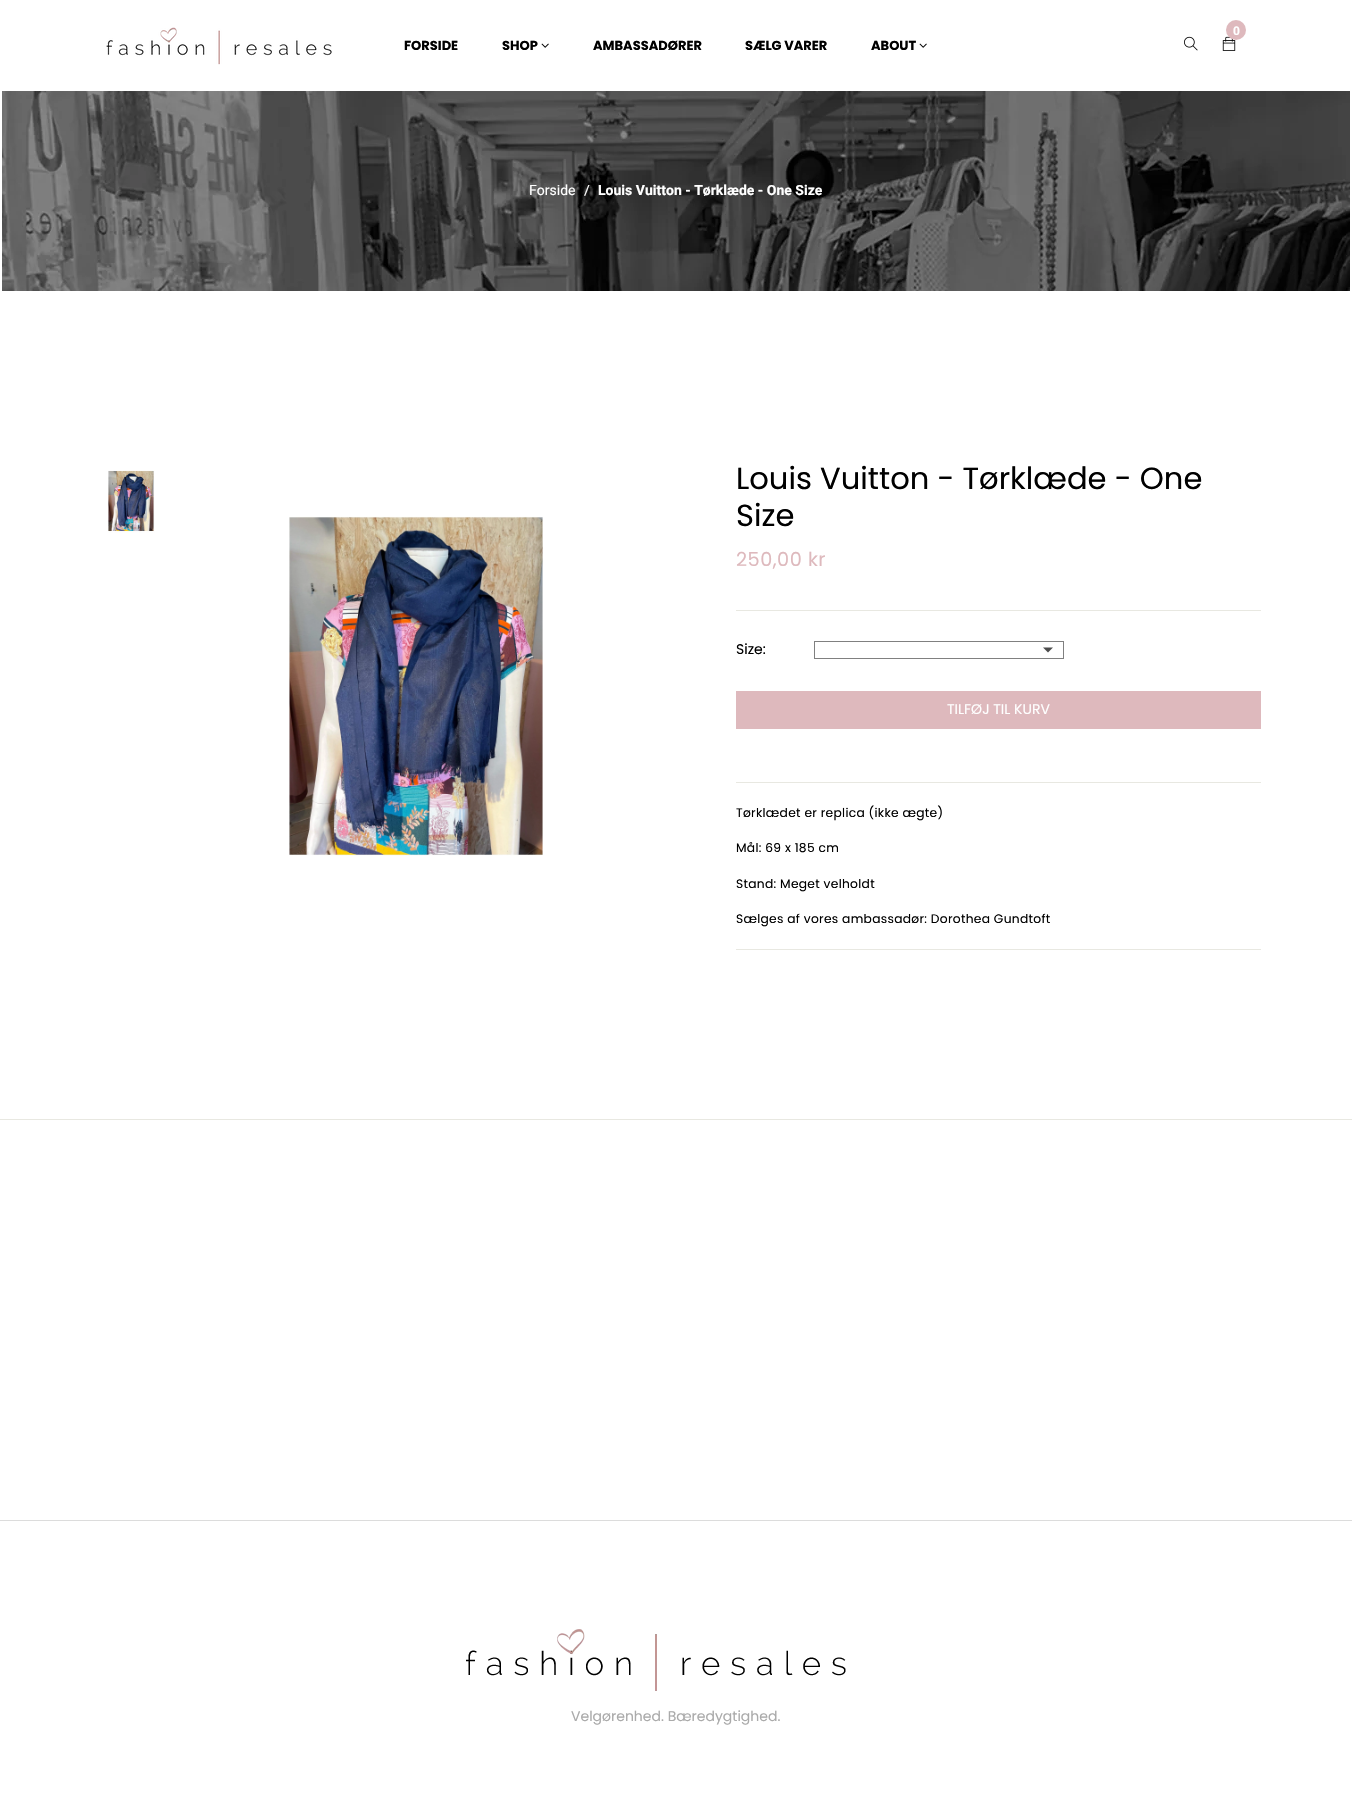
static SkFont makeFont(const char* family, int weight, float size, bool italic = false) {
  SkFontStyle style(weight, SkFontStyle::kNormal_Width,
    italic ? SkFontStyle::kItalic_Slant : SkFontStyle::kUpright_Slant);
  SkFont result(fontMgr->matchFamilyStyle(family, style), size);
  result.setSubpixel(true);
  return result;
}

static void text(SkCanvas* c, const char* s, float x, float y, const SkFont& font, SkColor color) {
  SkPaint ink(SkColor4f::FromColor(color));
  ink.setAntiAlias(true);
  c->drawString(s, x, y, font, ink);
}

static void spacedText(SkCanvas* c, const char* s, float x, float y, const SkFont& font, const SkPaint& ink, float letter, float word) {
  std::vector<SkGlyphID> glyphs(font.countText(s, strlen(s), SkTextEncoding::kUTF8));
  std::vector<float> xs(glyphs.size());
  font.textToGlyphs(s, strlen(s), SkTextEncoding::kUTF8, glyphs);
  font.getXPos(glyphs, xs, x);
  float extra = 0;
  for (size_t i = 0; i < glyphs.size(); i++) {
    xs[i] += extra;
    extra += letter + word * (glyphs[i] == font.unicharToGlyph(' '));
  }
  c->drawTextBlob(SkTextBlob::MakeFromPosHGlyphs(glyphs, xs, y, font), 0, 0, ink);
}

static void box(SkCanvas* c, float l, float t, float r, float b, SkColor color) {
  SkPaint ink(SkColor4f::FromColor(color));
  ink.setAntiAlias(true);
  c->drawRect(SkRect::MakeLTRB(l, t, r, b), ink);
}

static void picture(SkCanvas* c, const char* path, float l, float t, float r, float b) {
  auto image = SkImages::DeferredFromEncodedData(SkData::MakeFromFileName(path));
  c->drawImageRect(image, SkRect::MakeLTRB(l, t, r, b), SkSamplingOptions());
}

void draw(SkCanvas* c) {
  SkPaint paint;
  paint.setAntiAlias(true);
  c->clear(0xffffffff);
  picture(c, "img_01.png", 106, 27, 332, 65);
  SkFont face1 = makeFont("Poppins", 700, 13);
  text(c, "FORSIDE", 404, 50, face1, 0xff000000);
  text(c, "SHOP", 502, 50, face1, 0xff000000);
  picture(c, "img_02.png", 541, 43, 549, 48);
  text(c, "AMBASSADØRER", 593, 50, face1, 0xff000000);
  text(c, "SÆLG VARER", 745, 50, face1, 0xff000000);
  text(c, "ABOUT", 871, 50, face1, 0xff000000);
  picture(c, "img_02.png", 919, 43, 927, 48);
  picture(c, "img_03.png", 1222, 36, 1236, 51);
  paint.setColor(0xffdeb9bd);
  c->drawCircle(1236, 30, 10, paint);
  SkFont face2 = makeFont("Heebo", 700, 12);
  text(c, "0", 1233, 35, face2, 0xffffffff);
  picture(c, "img_04.png", 1184, 36, 1198, 51);
  picture(c, "img_05.png", 2, 91, 1350, 291);
  SkFont face3 = makeFont("Heebo", 400, 14);
  text(c, "Forside", 529, 195, face3, 0xffffffff);
  text(c, "/", 584, 195, face3, 0xffffffff);
  SkFont face4 = makeFont("Heebo", 700, 14);
  text(c, "Louis Vuitton - Tørklæde - One Size", 598, 195, face4, 0xffffffff);
  picture(c, "img_06.png", 108, 470, 155, 533);
  picture(c, "img_07.png", 289, 516, 543, 856);
  SkFont face5 = makeFont("Poppins", 400, 30.6f);
  text(c, "Louis Vuitton - Tørklæde - One", 736, 489, face5, 0xff000000);
  text(c, "Size", 736, 526, face5, 0xff000000);
  SkFont face6 = makeFont("Poppins", 400, 19.25f);
  spacedText(c, "250,00 kr", 736, 566, face6, paint, 0.5f, 0);
  box(c, 736, 610, 1261, 611, 0xffe8e8e1);
  SkFont face7 = makeFont("Poppins", 400, 14);
  text(c, "Size:", 736, 654, face7, 0xff000000);
  paint.setStyle(SkPaint::kStroke_Style);
  paint.setStrokeWidth(1);
  paint.setColor(0xff808080);
  c->drawRect(SkRect::MakeLTRB(814.5f, 641.5f, 1063.5f, 658.5f), paint);
  paint.setStyle(SkPaint::kFill_Style);
  paint.setColor(0xff4d4d4d);
  c->drawPath(SkPathBuilder().moveTo(1043, 647.5f).lineTo(1053, 647.5f).lineTo(1048, 652.5f).close().detach(), paint);
  box(c, 736, 691, 1261, 729, 0xffdeb9bd);
  text(c, "TILFØJ TIL KURV", 947, 714, face7, 0xffffffff);
  box(c, 736, 782, 1261, 783, 0xffe8e8e1);
  SkFont face8 = makeFont("Poppins", 400, 12.25f);
  paint.setColor(0xff000000);
  spacedText(c, "Tørklædet er replica (ikke ægte)", 736, 817, face8, paint, 0.3f, 0);
  spacedText(c, "Mål: 69 x 185 cm", 736, 852, face8, paint, 0.3f, 0);
  spacedText(c, "Stand: Meget velholdt", 736, 888, face8, paint, 0.3f, 0);
  spacedText(c, "Sælges af vores ambassadør: Dorothea Gundtoft", 736, 923, face8, paint, 0.3f, 0);
  box(c, 736, 949, 1261, 950, 0xffe8e8e1);
  box(c, 0, 1119, 1352, 1120, 0xffe8e8e1);
  box(c, 0, 1520, 1352, 1521, 0xffdcdcdc);
  picture(c, "img_08.png", 466, 1629, 846, 1691);
  text(c, "Velgørenhed. Bæredygtighed.", 571, 1721, face7, 0xffaaaaaa);
}
